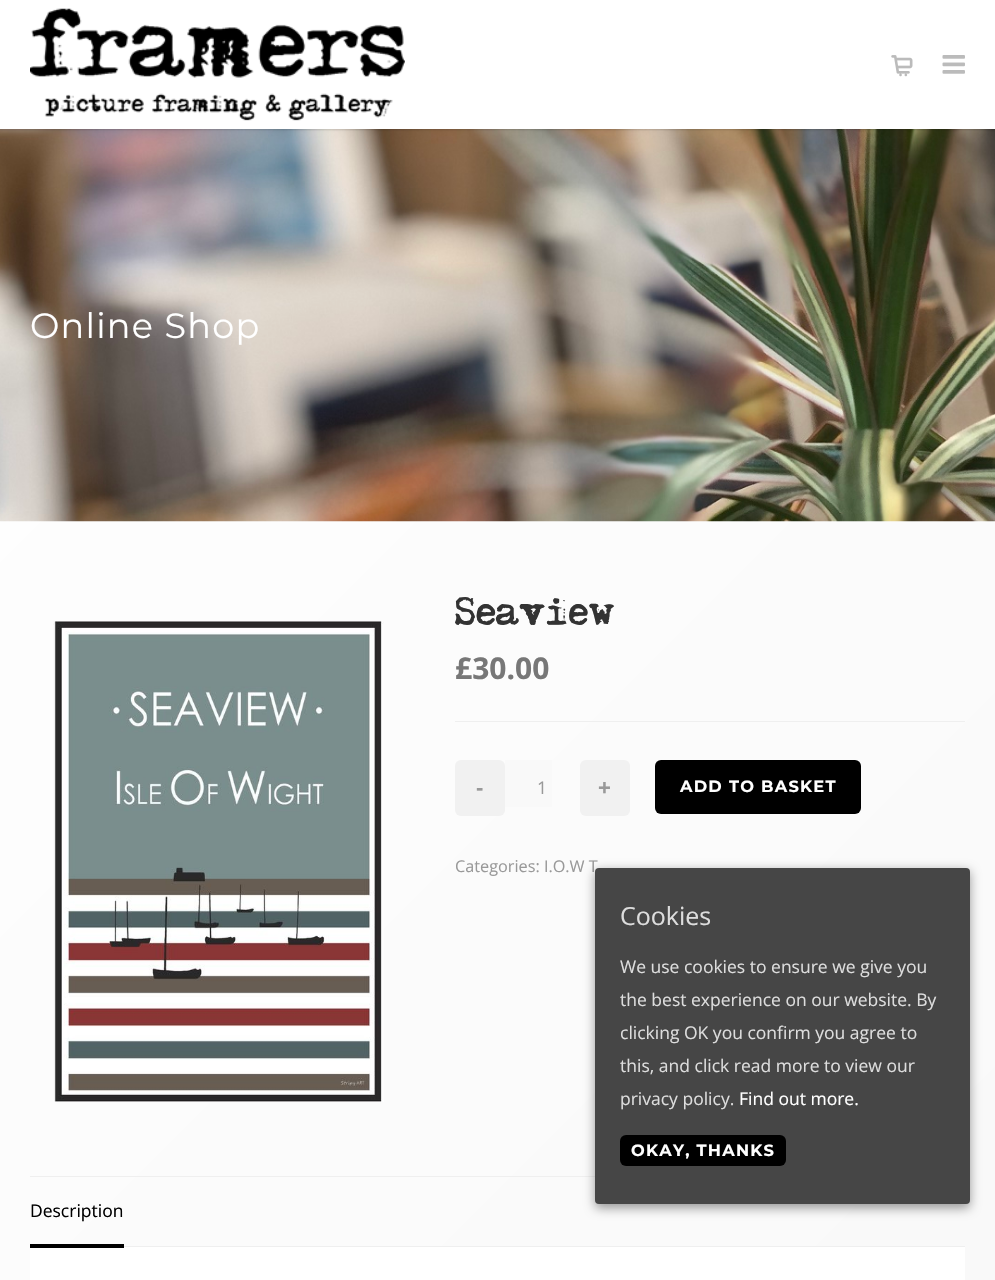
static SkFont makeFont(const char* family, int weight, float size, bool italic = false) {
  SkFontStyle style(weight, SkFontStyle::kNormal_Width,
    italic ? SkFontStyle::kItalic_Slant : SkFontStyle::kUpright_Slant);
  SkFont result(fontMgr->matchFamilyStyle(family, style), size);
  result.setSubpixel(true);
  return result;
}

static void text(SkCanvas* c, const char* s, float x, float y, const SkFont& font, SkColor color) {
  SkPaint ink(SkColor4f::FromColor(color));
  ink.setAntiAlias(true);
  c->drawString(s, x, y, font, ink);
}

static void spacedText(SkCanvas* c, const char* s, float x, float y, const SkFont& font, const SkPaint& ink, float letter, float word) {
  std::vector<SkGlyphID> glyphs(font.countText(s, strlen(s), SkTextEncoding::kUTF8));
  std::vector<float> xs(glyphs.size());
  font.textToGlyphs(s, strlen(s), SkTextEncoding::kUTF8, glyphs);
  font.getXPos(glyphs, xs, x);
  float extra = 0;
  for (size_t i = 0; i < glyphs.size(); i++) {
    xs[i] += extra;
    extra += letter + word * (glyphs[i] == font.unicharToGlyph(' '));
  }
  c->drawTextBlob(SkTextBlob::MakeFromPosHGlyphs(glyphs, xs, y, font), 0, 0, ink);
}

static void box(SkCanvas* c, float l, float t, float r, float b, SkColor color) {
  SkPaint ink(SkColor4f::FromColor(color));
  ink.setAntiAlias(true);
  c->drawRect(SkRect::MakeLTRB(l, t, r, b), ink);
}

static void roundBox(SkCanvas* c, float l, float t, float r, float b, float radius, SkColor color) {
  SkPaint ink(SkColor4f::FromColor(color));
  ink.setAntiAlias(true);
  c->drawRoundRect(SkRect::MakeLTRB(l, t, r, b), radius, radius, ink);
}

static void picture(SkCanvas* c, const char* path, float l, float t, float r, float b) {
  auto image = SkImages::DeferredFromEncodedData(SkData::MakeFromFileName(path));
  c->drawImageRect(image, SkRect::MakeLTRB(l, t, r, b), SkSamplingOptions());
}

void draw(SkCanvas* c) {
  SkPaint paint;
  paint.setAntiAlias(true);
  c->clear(0xffffffff);
  {
    const SkColor colors[] = {0xffffffff, 0xfff6f6f6, 0xffededed};
    const float stops[] = {0, 0.68f, 1};
    const SkPoint ends[] = {{-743, 743}, {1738, 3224}};
    paint.setShader(SkGradientShader::MakeLinear(ends, colors, stops, 3, SkTileMode::kClamp));
    paint.setAlpha(255);
  }
  c->drawRect(SkRect::MakeLTRB(0, 521, 995, 1280), paint);
  picture(c, "img_04.png", 0, 129, 995, 522);
  paint.setShader(nullptr);
  paint.setColor(0x29000000);
  paint.setMaskFilter(SkMaskFilter::MakeBlur(kNormal_SkBlurStyle, 1));
  c->drawRect(SkRect::MakeLTRB(-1, -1, 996, 130), paint);
  paint.setMaskFilter(nullptr);
  box(c, 0, 0, 995, 129, 0xffffffff);
  picture(c, "img_01.png", 30, 8, 405, 121);
  picture(c, "img_02.png", 891, 55, 913, 77);
  picture(c, "img_03.png", 942, 55, 965, 74);
  SkFont face1 = makeFont("Montserrat", 400, 35);
  paint.setColor(0xffffffff);
  spacedText(c, "Online Shop", 30, 338, face1, paint, 1.25f, 0);
  picture(c, "img_05.png", 53, 621, 384, 1102);
  SkFont face2 = makeFont("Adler", 400, 35);
  text(c, "Seaview", 455, 625, face2, 0xff333333);
  box(c, 455, 721, 965, 722, 0xffefefef);
  SkFont face3 = makeFont("Open Sans", 700, 30);
  text(c, "£30.00", 455, 679, face3, 0xff777777);
  roundBox(c, 455, 760, 505, 816, 6, 0xfff1f1f1);
  SkFont face4 = makeFont("Liberation Sans", 700, 22);
  paint.setColor(0xff999999);
  spacedText(c, "-", 476, 795, face4, paint, 1.25f, 0);
  box(c, 505, 760, 552, 807, 0xfff9f9f9);
  SkFont face5 = makeFont("Open Sans", 400, 17.5f);
  text(c, "1", 537, 794, face5, 0xff999999);
  roundBox(c, 580, 760, 630, 816, 6, 0xfff1f1f1);
  spacedText(c, "+", 598, 795, face4, paint, 1.25f, 0);
  roundBox(c, 655, 760, 861, 814, 6, 0xff000000);
  SkFont face6 = makeFont("Montserrat", 700, 16.25f);
  paint.setColor(0xffffffff);
  spacedText(c, "ADD TO BASKET", 680, 792, face6, paint, 1.25f, 0);
  SkFont face7 = makeFont("Open Sans", 400, 16.25f);
  text(c, "Categories: I.O.W T", 455, 872, face7, 0xff999999);
  box(c, 30, 1176, 595, 1177, 0xffefefef);
  box(c, 30, 1247, 965, 1280, 0xffffffff);
  box(c, 30, 1244, 124, 1248, 0xff000000);
  text(c, "Description", 30, 1217, face5, 0xff000000);
  box(c, 124, 1246, 965, 1247, 0xffefefef);
  paint.setColor(0x66000000);
  paint.setMaskFilter(SkMaskFilter::MakeBlur(kNormal_SkBlurStyle, 5.5f));
  c->drawRoundRect(SkRect::MakeLTRB(595, 871, 970, 1208), 4, 4, paint);
  paint.setMaskFilter(nullptr);
  roundBox(c, 595, 868, 970, 1204, 4, 0xff464646);
  SkFont face8 = makeFont("Open Sans", 400, 25);
  text(c, "Cookies", 620, 925, face8, 0xffdddddd);
  text(c, "We use cookies to ensure we give you", 620, 973, face5, 0xffdddddd);
  text(c, "the best experience on our website. By", 620, 1006, face5, 0xffdddddd);
  text(c, "clicking OK you confirm you agree to", 620, 1039, face5, 0xffdddddd);
  text(c, "this, and click read more to view our", 620, 1072, face5, 0xffdddddd);
  text(c, "privacy policy.", 620, 1105, face5, 0xffdddddd);
  text(c, "Find out more.", 739, 1105, face5, 0xffffffff);
  roundBox(c, 620, 1135, 786, 1166, 6, 0xff000000);
  paint.setColor(0xffffffff);
  spacedText(c, "OKAY, THANKS", 631, 1156, face6, paint, 1.25f, 0);
}
